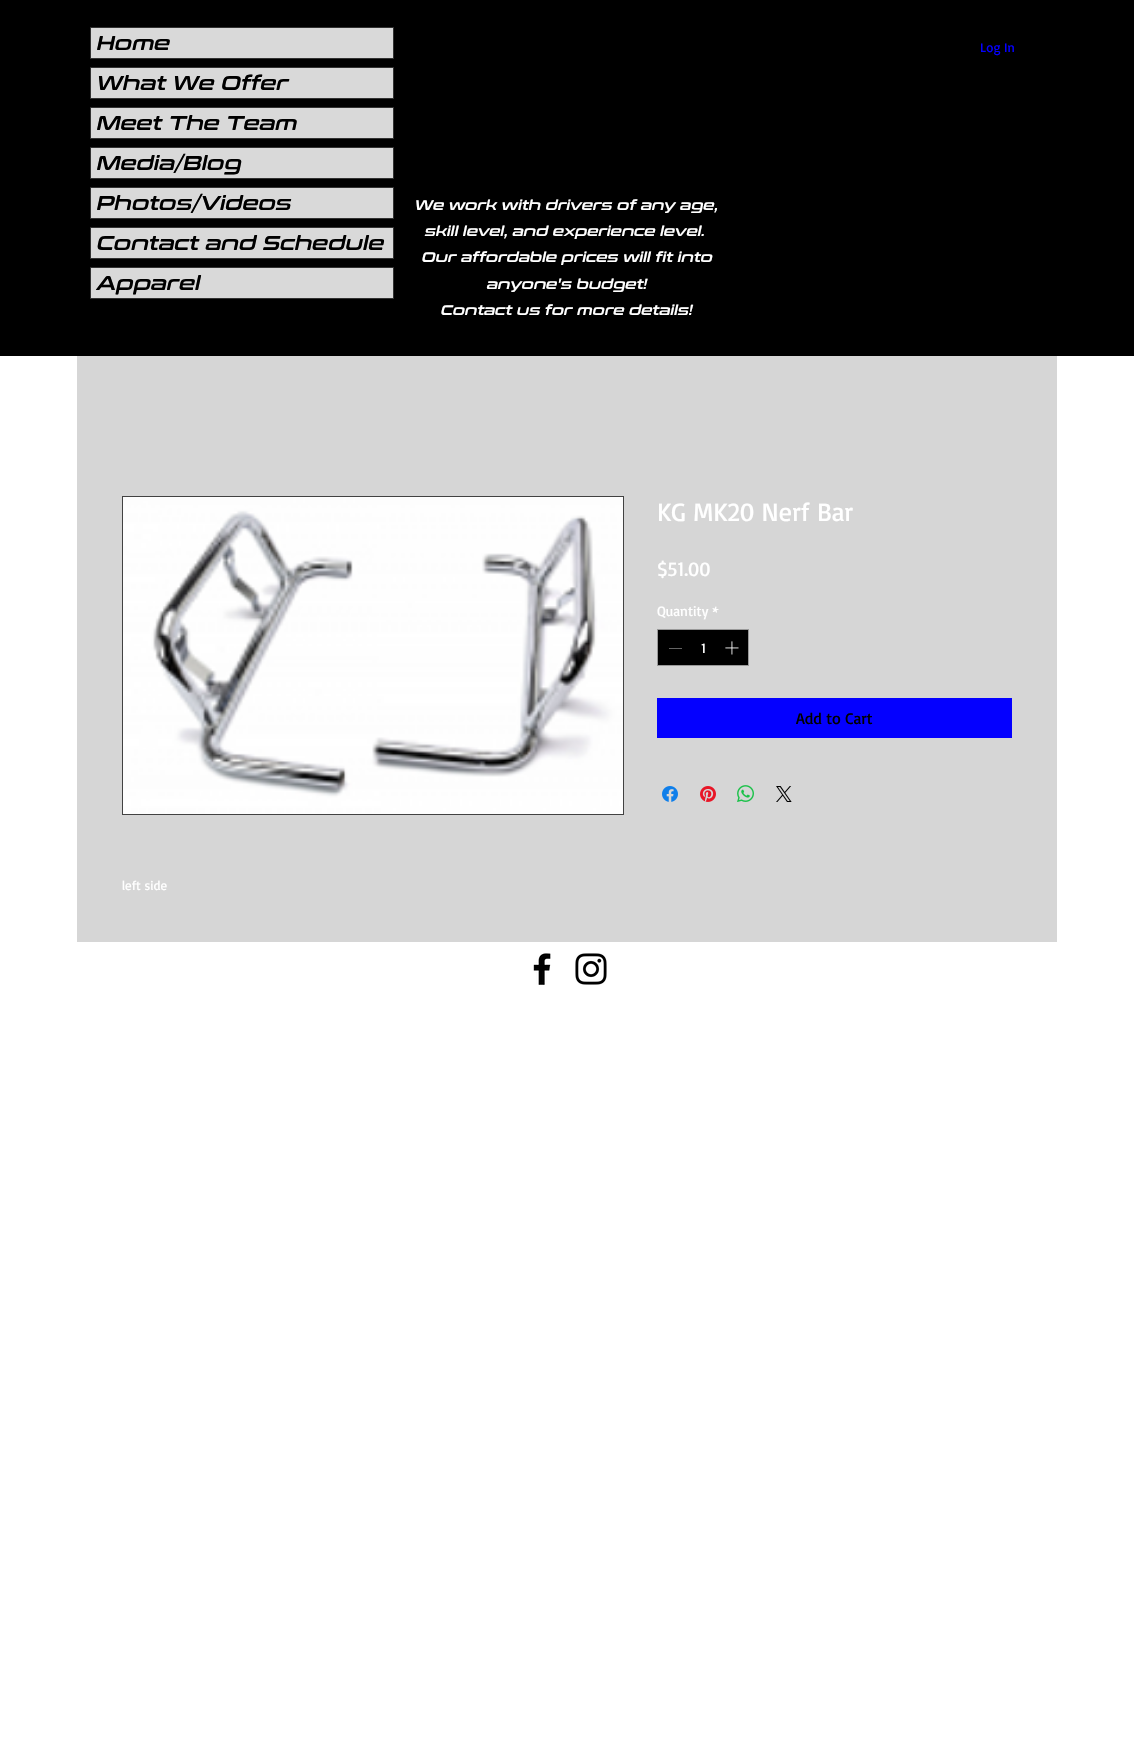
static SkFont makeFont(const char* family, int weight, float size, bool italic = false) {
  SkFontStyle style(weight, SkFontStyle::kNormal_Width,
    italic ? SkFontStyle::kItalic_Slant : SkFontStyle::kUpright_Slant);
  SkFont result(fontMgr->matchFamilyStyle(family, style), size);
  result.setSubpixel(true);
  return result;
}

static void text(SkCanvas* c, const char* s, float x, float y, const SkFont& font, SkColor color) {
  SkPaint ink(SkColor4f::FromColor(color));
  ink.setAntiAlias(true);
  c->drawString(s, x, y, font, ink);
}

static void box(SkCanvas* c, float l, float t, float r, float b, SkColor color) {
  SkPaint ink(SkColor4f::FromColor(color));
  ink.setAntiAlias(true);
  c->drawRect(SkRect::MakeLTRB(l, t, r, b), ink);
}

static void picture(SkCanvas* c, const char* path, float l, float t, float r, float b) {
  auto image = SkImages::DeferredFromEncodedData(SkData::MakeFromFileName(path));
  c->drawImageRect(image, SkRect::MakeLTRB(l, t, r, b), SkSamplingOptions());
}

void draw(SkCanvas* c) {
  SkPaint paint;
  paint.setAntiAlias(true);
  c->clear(0xffffffff);
  box(c, 0, 0, 1134, 356, 0xff000000);
  paint.setColor(0xffd9d9d9);
  c->drawRect(SkRect::MakeLTRB(90.5f, 27.5f, 393.5f, 58.5f), paint);
  paint.setStyle(SkPaint::kStroke_Style);
  paint.setStrokeWidth(1);
  paint.setColor(0xff323232);
  c->drawRect(SkRect::MakeLTRB(90.5f, 27.5f, 393.5f, 58.5f), paint);
  SkFont face1 = makeFont("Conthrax", 600, 20, true);
  text(c, "Home", 97, 50, face1, 0xff000000);
  paint.setStyle(SkPaint::kFill_Style);
  paint.setColor(0xffd9d9d9);
  c->drawRect(SkRect::MakeLTRB(90.5f, 67.5f, 393.5f, 98.5f), paint);
  paint.setStyle(SkPaint::kStroke_Style);
  paint.setColor(0xff323232);
  c->drawRect(SkRect::MakeLTRB(90.5f, 67.5f, 393.5f, 98.5f), paint);
  text(c, "What We Offer", 97, 90, face1, 0xff000000);
  paint.setStyle(SkPaint::kFill_Style);
  paint.setColor(0xffd9d9d9);
  c->drawRect(SkRect::MakeLTRB(90.5f, 107.5f, 393.5f, 138.5f), paint);
  paint.setStyle(SkPaint::kStroke_Style);
  paint.setColor(0xff323232);
  c->drawRect(SkRect::MakeLTRB(90.5f, 107.5f, 393.5f, 138.5f), paint);
  text(c, "Meet The Team", 97, 130, face1, 0xff000000);
  paint.setStyle(SkPaint::kFill_Style);
  paint.setColor(0xffd9d9d9);
  c->drawRect(SkRect::MakeLTRB(90.5f, 147.5f, 393.5f, 178.5f), paint);
  paint.setStyle(SkPaint::kStroke_Style);
  paint.setColor(0xff323232);
  c->drawRect(SkRect::MakeLTRB(90.5f, 147.5f, 393.5f, 178.5f), paint);
  text(c, "Media/Blog", 97, 170, face1, 0xff000000);
  paint.setStyle(SkPaint::kFill_Style);
  paint.setColor(0xffd9d9d9);
  c->drawRect(SkRect::MakeLTRB(90.5f, 187.5f, 393.5f, 218.5f), paint);
  paint.setStyle(SkPaint::kStroke_Style);
  paint.setColor(0xff323232);
  c->drawRect(SkRect::MakeLTRB(90.5f, 187.5f, 393.5f, 218.5f), paint);
  text(c, "Photos/Videos", 97, 210, face1, 0xff000000);
  paint.setStyle(SkPaint::kFill_Style);
  paint.setColor(0xffd9d9d9);
  c->drawRect(SkRect::MakeLTRB(90.5f, 227.5f, 393.5f, 258.5f), paint);
  paint.setStyle(SkPaint::kStroke_Style);
  paint.setColor(0xff323232);
  c->drawRect(SkRect::MakeLTRB(90.5f, 227.5f, 393.5f, 258.5f), paint);
  text(c, "Contact and Schedule", 97, 250, face1, 0xff000000);
  paint.setStyle(SkPaint::kFill_Style);
  paint.setColor(0xffd9d9d9);
  c->drawRect(SkRect::MakeLTRB(90.5f, 267.5f, 393.5f, 298.5f), paint);
  paint.setStyle(SkPaint::kStroke_Style);
  paint.setColor(0xff323232);
  c->drawRect(SkRect::MakeLTRB(90.5f, 267.5f, 393.5f, 298.5f), paint);
  text(c, "Apparel", 97, 290, face1, 0xff000000);
  SkFont face2 = makeFont("Basic", 400, 13);
  text(c, "Log In", 980, 52, face2, 0xff0400ff);
  SkFont face3 = makeFont("Conthrax", 600, 14, true);
  text(c, "We work with drivers of any age,", 415, 210, face3, 0xffffffff);
  text(c, "skill level, and experience level.", 425, 236, face3, 0xffffffff);
  text(c, "Our affordable prices will fit into", 422, 262, face3, 0xffffffff);
  text(c, "anyone's budget!", 487, 289, face3, 0xffffffff);
  text(c, "Contact us for more details!", 441, 315, face3, 0xffffffff);
  box(c, 77, 356, 1057, 942, 0xffd6d6d6);
  SkFont face4 = makeFont("Basic", 400, 26);
  text(c, "KG MK20 Nerf Bar", 657, 521, face4, 0xffffffff);
  SkFont face5 = makeFont("Basic", 400, 20);
  text(c, "$51.00", 657, 576, face5, 0xffffffff);
  SkFont face6 = makeFont("Basic", 400, 14);
  text(c, "Quantity *", 657, 616, face6, 0xffffffff);
  paint.setStyle(SkPaint::kFill_Style);
  paint.setColor(0xff000000);
  c->drawRect(SkRect::MakeLTRB(657.5f, 629.5f, 748.5f, 665.5f), paint);
  paint.setStyle(SkPaint::kStroke_Style);
  paint.setColor(0xff999999);
  c->drawRect(SkRect::MakeLTRB(657.5f, 629.5f, 748.5f, 665.5f), paint);
  box(c, 669, 648, 682, 649, 0xff646464);
  text(c, "1", 701, 653, face6, 0xffffffff);
  picture(c, "img_01.png", 725, 641, 739, 655);
  box(c, 657, 698, 1012, 738, 0xff0400ff);
  SkFont face7 = makeFont("Basic", 400, 16);
  text(c, "Add to Cart", 796, 724, face7, 0xff000000);
  picture(c, "img_02.png", 662, 786, 678, 802);
  picture(c, "img_03.png", 700, 786, 716, 802);
  picture(c, "img_04.png", 737, 785, 754, 802);
  picture(c, "img_05.png", 776, 786, 792, 802);
  paint.setColor(0xff424242);
  c->drawRect(SkRect::MakeLTRB(122.5f, 496.5f, 623.5f, 814.5f), paint);
  picture(c, "img_06.png", 123, 497, 623, 814);
  text(c, "left side", 122, 890, face2, 0xffffffff);
  picture(c, "img_07.png", 533, 953, 551, 985);
  picture(c, "img_08.png", 575, 953, 607, 985);
}
